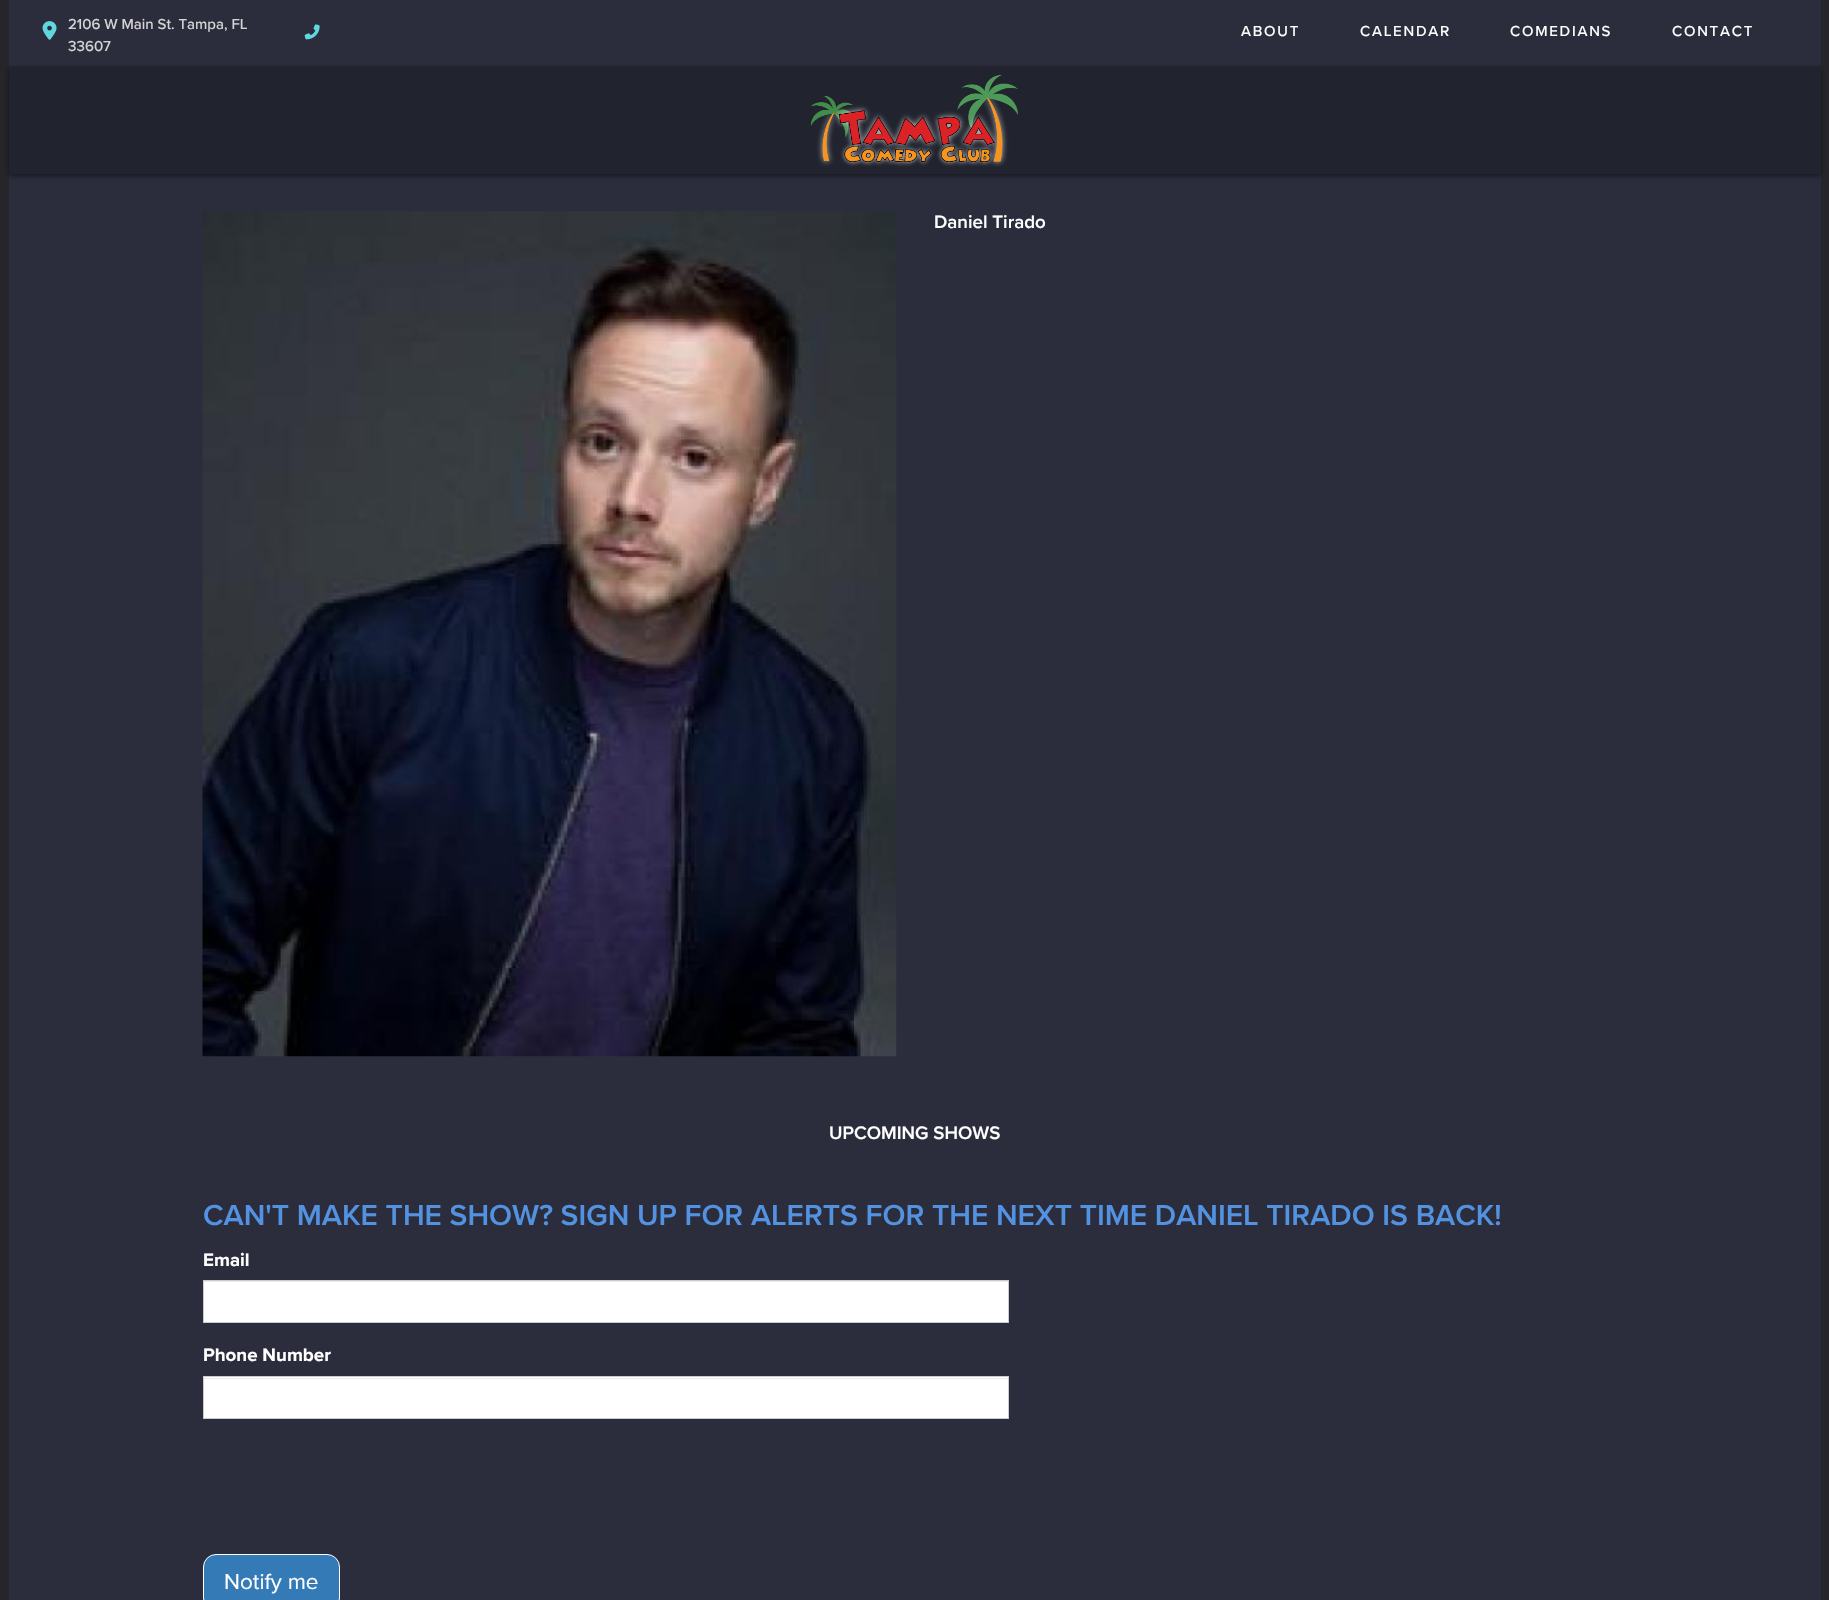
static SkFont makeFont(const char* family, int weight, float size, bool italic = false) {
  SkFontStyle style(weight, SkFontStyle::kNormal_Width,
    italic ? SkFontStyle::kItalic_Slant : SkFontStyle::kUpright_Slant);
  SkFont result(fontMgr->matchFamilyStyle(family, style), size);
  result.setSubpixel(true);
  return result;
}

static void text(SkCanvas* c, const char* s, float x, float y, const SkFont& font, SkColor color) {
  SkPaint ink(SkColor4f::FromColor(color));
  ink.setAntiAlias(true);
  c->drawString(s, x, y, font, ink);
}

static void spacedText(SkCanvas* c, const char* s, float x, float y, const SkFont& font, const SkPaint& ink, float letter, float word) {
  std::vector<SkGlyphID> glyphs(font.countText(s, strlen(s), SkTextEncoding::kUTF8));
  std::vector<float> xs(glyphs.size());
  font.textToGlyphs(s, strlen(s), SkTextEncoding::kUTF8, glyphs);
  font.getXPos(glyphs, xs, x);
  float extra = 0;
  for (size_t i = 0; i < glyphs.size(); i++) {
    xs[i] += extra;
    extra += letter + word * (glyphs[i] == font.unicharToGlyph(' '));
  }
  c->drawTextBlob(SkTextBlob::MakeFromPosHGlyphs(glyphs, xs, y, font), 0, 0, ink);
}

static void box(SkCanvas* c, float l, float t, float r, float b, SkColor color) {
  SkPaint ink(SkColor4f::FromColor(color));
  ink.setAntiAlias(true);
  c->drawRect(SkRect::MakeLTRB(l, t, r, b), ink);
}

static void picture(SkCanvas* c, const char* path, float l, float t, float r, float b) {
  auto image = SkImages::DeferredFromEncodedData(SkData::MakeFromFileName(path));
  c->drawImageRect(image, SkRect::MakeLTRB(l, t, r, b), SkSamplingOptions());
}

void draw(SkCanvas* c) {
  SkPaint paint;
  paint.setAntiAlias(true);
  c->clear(0xff26252a);
  box(c, 9, 0, 1821, 1600, 0xff2b2d3c);
  picture(c, "img_01.png", 42, 21, 57, 40);
  SkFont face1 = makeFont("Proxima Nova", 500, 15);
  text(c, "2106 W Main St. Tampa, FL", 68, 29, face1, 0xffd5d5d5);
  text(c, "33607", 68, 51, face1, 0xffd5d5d5);
  picture(c, "img_02.png", 304, 24, 320, 40);
  paint.setColor(0xffffffff);
  spacedText(c, "ABOUT", 1241, 36, face1, paint, 1.75f, 0);
  spacedText(c, "CALENDAR", 1360, 36, face1, paint, 1.75f, 0);
  spacedText(c, "COMEDIANS", 1510, 36, face1, paint, 1.75f, 0);
  spacedText(c, "CONTACT", 1672, 36, face1, paint, 1.75f, 0);
  paint.setColor(0x80000000);
  paint.setMaskFilter(SkMaskFilter::MakeBlur(kNormal_SkBlurStyle, 2.5f));
  c->drawRect(SkRect::MakeLTRB(9, 69, 1821, 176), paint);
  paint.setMaskFilter(nullptr);
  box(c, 9, 66, 1821, 174, 0xff21232e);
  picture(c, "img_03.png", 810, 74, 1018, 167);
  picture(c, "img_04.png", 202, 211, 897, 1057);
  SkFont face2 = makeFont("Proxima Nova", 600, 18.75f);
  text(c, "Daniel Tirado", 934, 228, face2, 0xffffffff);
  text(c, "UPCOMING SHOWS", 829, 1139, face2, 0xffffffff);
  SkFont face3 = makeFont("Proxima Nova", 600, 30);
  text(c, "CAN'T MAKE THE SHOW? SIGN UP FOR ALERTS FOR THE NEXT TIME DANIEL TIRADO IS BACK!", 203, 1225, face3, 0xff5292e1);
  SkFont face4 = makeFont("Proxima Nova", 700, 18.75f);
  text(c, "Email", 203, 1266, face4, 0xffffffff);
  box(c, 204, 1282, 1008, 1322, 0xffffffff);
  box(c, 204, 1281, 1008, 1282, 0xffececec);
  paint.setStyle(SkPaint::kStroke_Style);
  paint.setStrokeWidth(1);
  paint.setColor(0xffcccccc);
  c->drawRect(SkRect::MakeLTRB(203.5f, 1280.5f, 1008.5f, 1322.5f), paint);
  text(c, "Phone Number", 203, 1361, face4, 0xffffffff);
  box(c, 204, 1377, 1008, 1418, 0xffffffff);
  box(c, 204, 1378, 1008, 1379, 0xffececec);
  c->drawRect(SkRect::MakeLTRB(203.5f, 1376.5f, 1008.5f, 1418.5f), paint);
  paint.setStyle(SkPaint::kFill_Style);
  paint.setColor(0xff337ab7);
  c->drawRoundRect(SkRect::MakeLTRB(203.5f, 1554.5f, 339.5f, 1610.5f), 12.5f, 12.5f, paint);
  paint.setStyle(SkPaint::kStroke_Style);
  paint.setColor(0xffffffff);
  c->drawRoundRect(SkRect::MakeLTRB(203.5f, 1554.5f, 339.5f, 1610.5f), 12.5f, 12.5f, paint);
  SkFont face5 = makeFont("Proxima Nova", 400, 22.5f);
  text(c, "Notify me", 224, 1589, face5, 0xffffffff);
}
